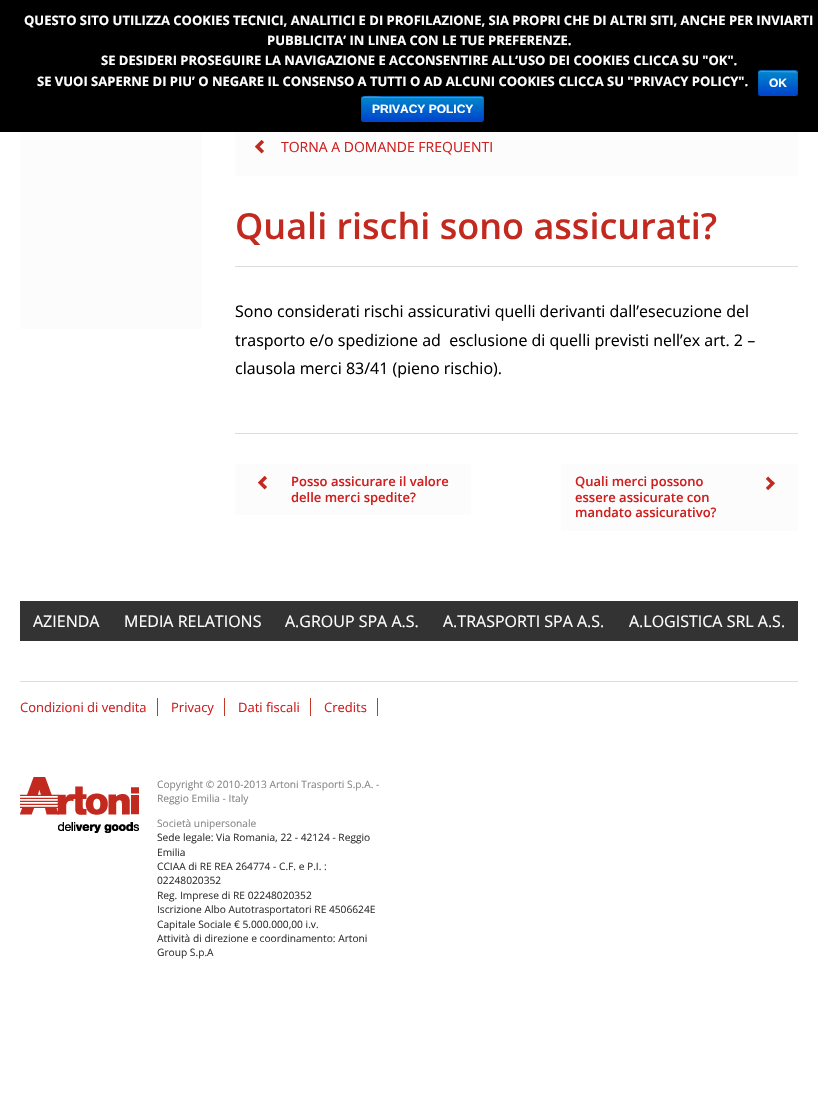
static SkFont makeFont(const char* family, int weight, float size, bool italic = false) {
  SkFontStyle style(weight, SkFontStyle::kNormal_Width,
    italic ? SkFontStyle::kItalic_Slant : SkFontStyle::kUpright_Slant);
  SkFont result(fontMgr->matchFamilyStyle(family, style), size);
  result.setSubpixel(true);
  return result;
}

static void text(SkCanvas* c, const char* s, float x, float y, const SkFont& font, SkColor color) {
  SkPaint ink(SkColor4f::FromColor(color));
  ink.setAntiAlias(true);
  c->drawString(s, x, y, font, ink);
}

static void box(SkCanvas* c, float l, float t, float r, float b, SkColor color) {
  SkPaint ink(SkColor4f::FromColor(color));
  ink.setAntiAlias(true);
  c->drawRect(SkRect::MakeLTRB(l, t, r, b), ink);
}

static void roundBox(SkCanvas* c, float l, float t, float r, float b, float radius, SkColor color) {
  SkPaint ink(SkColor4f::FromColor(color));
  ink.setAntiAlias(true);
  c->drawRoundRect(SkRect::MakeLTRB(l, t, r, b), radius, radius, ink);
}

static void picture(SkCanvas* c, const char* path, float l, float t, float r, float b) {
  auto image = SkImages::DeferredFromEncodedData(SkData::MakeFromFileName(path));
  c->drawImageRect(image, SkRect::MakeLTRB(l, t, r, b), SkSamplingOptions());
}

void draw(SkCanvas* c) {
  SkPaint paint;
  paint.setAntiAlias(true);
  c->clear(0xffffffff);
  box(c, 0, 0, 818, 132, 0xff000000);
  SkFont face1 = makeFont("Open Sans", 700, 13);
  text(c, "QUESTO SITO UTILIZZA COOKIES TECNICI, ANALITICI E DI PROFILAZIONE, SIA PROPRI CHE DI ALTRI SITI, ANCHE PER INVIARTI", 24, 25, face1, 0xffffffff);
  text(c, "PUBBLICITA’ IN LINEA CON LE TUE PREFERENZE.", 267, 45, face1, 0xffffffff);
  text(c, "SE DESIDERI PROSEGUIRE LA NAVIGAZIONE E ACCONSENTIRE ALL’USO DEI COOKIES CLICCA SU \"OK\".", 101, 65, face1, 0xffffffff);
  text(c, "SE VUOI SAPERNE DI PIU’ O NEGARE IL CONSENSO A TUTTI O AD ALCUNI COOKIES CLICCA SU \"PRIVACY POLICY\".", 37, 86, face1, 0xffffffff);
  roundBox(c, 758, 70, 798, 96, 3, 0xff006dcc);
  c->save();
  c->clipPath(SkPathBuilder().moveTo(761, 70).lineTo(795, 70).cubicTo(796.5f, 70, 798, 71.5f, 798, 73).lineTo(798, 93).cubicTo(798, 94.5f, 796.5f, 96, 795, 96).lineTo(761, 96).cubicTo(759.5f, 96, 758, 94.5f, 758, 93).lineTo(758, 73).cubicTo(758, 71.5f, 759.5f, 70, 761, 70).close().detach(), true);
  {
    const SkColor colors[] = {0xff0088cc, 0xff0044cc};
    const float stops[] = {0, 1};
    const SkPoint ends[] = {{778, 71}, {778, 95}};
    paint.setShader(SkGradientShader::MakeLinear(ends, colors, stops, 2, SkTileMode::kClamp));
    paint.setAlpha(255);
  }
  c->drawRect(SkRect::MakeLTRB(758, 71, 798, 95), paint);
  c->restore();
  paint.setShader(nullptr);
  paint.setColor(0x33ffffff);
  c->drawPath(SkPathBuilder(SkPathFillType::kEvenOdd).moveTo(761, 72).lineTo(795.5f, 72.5f).cubicTo(796, 72.5f, 796.5f, 72.5f, 797, 73.5f).cubicTo(797, 69.5f, 791, 71, 789.5f, 71).lineTo(766.5f, 71).cubicTo(761.5f, 71, 759, 69.5f, 759, 74.5f).cubicTo(759, 73, 760, 72, 761, 72).close().moveTo(759, 93.5f).lineTo(759, 93).close().detach(), paint);
  paint.setStyle(SkPaint::kStroke_Style);
  paint.setStrokeWidth(1);
  paint.setColor(0x40000000);
  c->drawPath(SkPathBuilder().moveTo(797, 95).lineTo(795, 95.5f).lineTo(761, 95.5f).lineTo(759, 95).detach(), paint);
  paint.setColor(0x1a000000);
  c->drawPath(SkPathBuilder().moveTo(759, 95).cubicTo(759, 94.5f, 758.5f, 93.5f, 758.5f, 93).lineTo(758.5f, 73).cubicTo(758.5f, 72.5f, 759, 71.5f, 759, 71).cubicTo(759.5f, 71, 760.5f, 70.5f, 761, 70.5f).lineTo(795, 70.5f).cubicTo(795.5f, 70.5f, 796.5f, 71, 797, 71).cubicTo(797, 71.5f, 797.5f, 72.5f, 797.5f, 73).lineTo(797.5f, 93).cubicTo(797.5f, 93.5f, 797, 94.5f, 797, 95).detach(), paint);
  SkFont face2 = makeFont("Liberation Sans", 700, 12);
  text(c, "OK", 769, 87, face2, 0xffffffff);
  roundBox(c, 361, 96, 484, 122, 3, 0xff006dcc);
  c->save();
  c->clipPath(SkPathBuilder().moveTo(364, 96).lineTo(481, 96).cubicTo(482.5f, 96, 484, 97.5f, 484, 99).lineTo(484, 119).cubicTo(484, 120.5f, 482.5f, 122, 481, 122).lineTo(364, 122).cubicTo(362.5f, 122, 361, 120.5f, 361, 119).lineTo(361, 99).cubicTo(361, 97.5f, 362.5f, 96, 364, 96).close().detach(), true);
  paint.setStyle(SkPaint::kFill_Style);
  {
    const SkColor colors[] = {0xff0088cc, 0xff0044cc};
    const float stops[] = {0, 1};
    const SkPoint ends[] = {{423, 97}, {423, 121}};
    paint.setShader(SkGradientShader::MakeLinear(ends, colors, stops, 2, SkTileMode::kClamp));
    paint.setAlpha(255);
  }
  c->drawRect(SkRect::MakeLTRB(361, 97, 484, 121), paint);
  c->restore();
  paint.setShader(nullptr);
  paint.setColor(0x33ffffff);
  c->drawPath(SkPathBuilder().moveTo(364, 98).lineTo(481, 98).lineTo(483, 99).lineTo(483, 100).cubicTo(483, 99, 483, 98, 482, 97).lineTo(384, 97).cubicTo(377, 97, 362, 93, 362, 100).cubicTo(362, 99, 363, 98, 364, 98).close().detach(), paint);
  paint.setStyle(SkPaint::kStroke_Style);
  paint.setColor(0x40000000);
  c->drawPath(SkPathBuilder().moveTo(483, 121).lineTo(481, 121.5f).lineTo(383.5f, 121.5f).lineTo(364, 121.5f).lineTo(362, 121).detach(), paint);
  paint.setColor(0x1a000000);
  c->drawPath(SkPathBuilder().moveTo(362, 121).cubicTo(360.5f, 119, 361.5f, 111.5f, 361.5f, 109).lineTo(361.5f, 102.5f).cubicTo(361.5f, 100.5f, 361, 96.5f, 364, 96.5f).lineTo(481, 96.5f).cubicTo(484, 96.5f, 483.5f, 100.5f, 483.5f, 102.5f).lineTo(483.5f, 109).cubicTo(483.5f, 111.5f, 484.5f, 119, 483, 121).detach(), paint);
  text(c, "PRIVACY POLICY", 372, 113, face2, 0xffffffff);
  box(c, 20, 132, 202, 329, 0xfffcfcfc);
  box(c, 235, 132, 798, 176, 0xfffbfcfb);
  picture(c, "img_01.png", 255, 140, 264, 154);
  SkFont face3 = makeFont("Open Sans", 400, 14);
  text(c, "TORNA A DOMANDE FREQUENTI", 281, 152, face3, 0xffd11f1f);
  box(c, 235, 266, 798, 267, 0xffdddddd);
  SkFont face4 = makeFont("Open Sans", 600, 36);
  text(c, "Quali rischi sono assicurati?", 235, 239, face4, 0xffc32a1f);
  SkFont face5 = makeFont("Open Sans", 400, 16);
  text(c, "Sono considerati rischi assicurativi quelli derivanti dall’esecuzione del", 235, 317, face5, 0xff000000);
  text(c, "trasporto e/o spedizione ad  esclusione di quelli previsti nell’ex art. 2 –", 235, 346, face5, 0xff000000);
  text(c, "clausola merci 83/41 (pieno rischio).", 235, 374, face5, 0xff000000);
  box(c, 235, 433, 798, 434, 0xffdcdddc);
  box(c, 235, 464, 471, 515, 0xfffbfcfb);
  picture(c, "img_01.png", 258, 476, 267, 490);
  SkFont face6 = makeFont("Open Sans", 600, 13);
  text(c, "Posso assicurare il valore", 291, 486, face6, 0xffd11f1f);
  text(c, "delle merci spedite?", 291, 502, face6, 0xffd11f1f);
  box(c, 561, 464, 798, 531, 0xfffbfcfb);
  picture(c, "img_02.png", 766, 476, 775, 490);
  text(c, "Quali merci possono", 575, 486, face6, 0xffd11f1f);
  text(c, "essere assicurate con", 575, 502, face6, 0xffd11f1f);
  text(c, "mandato assicurativo?", 575, 517, face6, 0xffd11f1f);
  box(c, 20, 601, 798, 641, 0xff333333);
  text(c, "AZIENDA", 33, 627, face5, 0xffffffff);
  text(c, "MEDIA RELATIONS", 124, 627, face5, 0xffffffff);
  text(c, "A.GROUP SPA A.S.", 285, 627, face5, 0xffffffff);
  text(c, "A.TRASPORTI SPA A.S.", 443, 627, face5, 0xffffffff);
  text(c, "A.LOGISTICA SRL A.S.", 629, 627, face5, 0xffffffff);
  box(c, 20, 681, 798, 682, 0xffdddddd);
  SkFont face7 = makeFont("Open Sans", 400, 13);
  text(c, "Condizioni di vendita", 20, 712, face7, 0xffd11f1f);
  box(c, 157, 698, 158, 716, 0xffc43825);
  text(c, "Privacy", 171, 712, face7, 0xffd11f1f);
  box(c, 224, 698, 225, 716, 0xffc43825);
  text(c, "Dati fiscali", 238, 712, face7, 0xffd11f1f);
  box(c, 310, 698, 311, 716, 0xffc43825);
  text(c, "Credits", 324, 712, face7, 0xffd11f1f);
  box(c, 377, 698, 378, 716, 0xffc43825);
  picture(c, "img_03.png", 20, 777, 139, 833);
  SkFont face8 = makeFont("Open Sans", 400, 10.2f);
  text(c, "Copyright © 2010-2013 Artoni Trasporti S.p.A. -", 157, 788, face8, 0xff868686);
  text(c, "Reggio Emilia - Italy", 157, 802, face8, 0xff868686);
  text(c, "Società unipersonale", 157, 827, face8, 0xff868686);
  text(c, "Sede legale: Via Romania, 22 - 42124 - Reggio", 157, 841, face8, 0xff333333);
  text(c, "Emilia", 157, 856, face8, 0xff333333);
  text(c, "CCIAA di RE REA 264774 - C.F. e P.I. :", 157, 870, face8, 0xff333333);
  text(c, "02248020352", 157, 884, face8, 0xff333333);
  text(c, "Reg. Imprese di RE 02248020352", 157, 899, face8, 0xff333333);
  text(c, "Iscrizione Albo Autotrasportatori RE 4506624E", 157, 913, face8, 0xff333333);
  text(c, "Capitale Sociale € 5.000.000,00 i.v.", 157, 928, face8, 0xff333333);
  text(c, "Attività di direzione e coordinamento: Artoni", 157, 942, face8, 0xff333333);
  text(c, "Group S.p.A", 157, 956, face8, 0xff333333);
}
